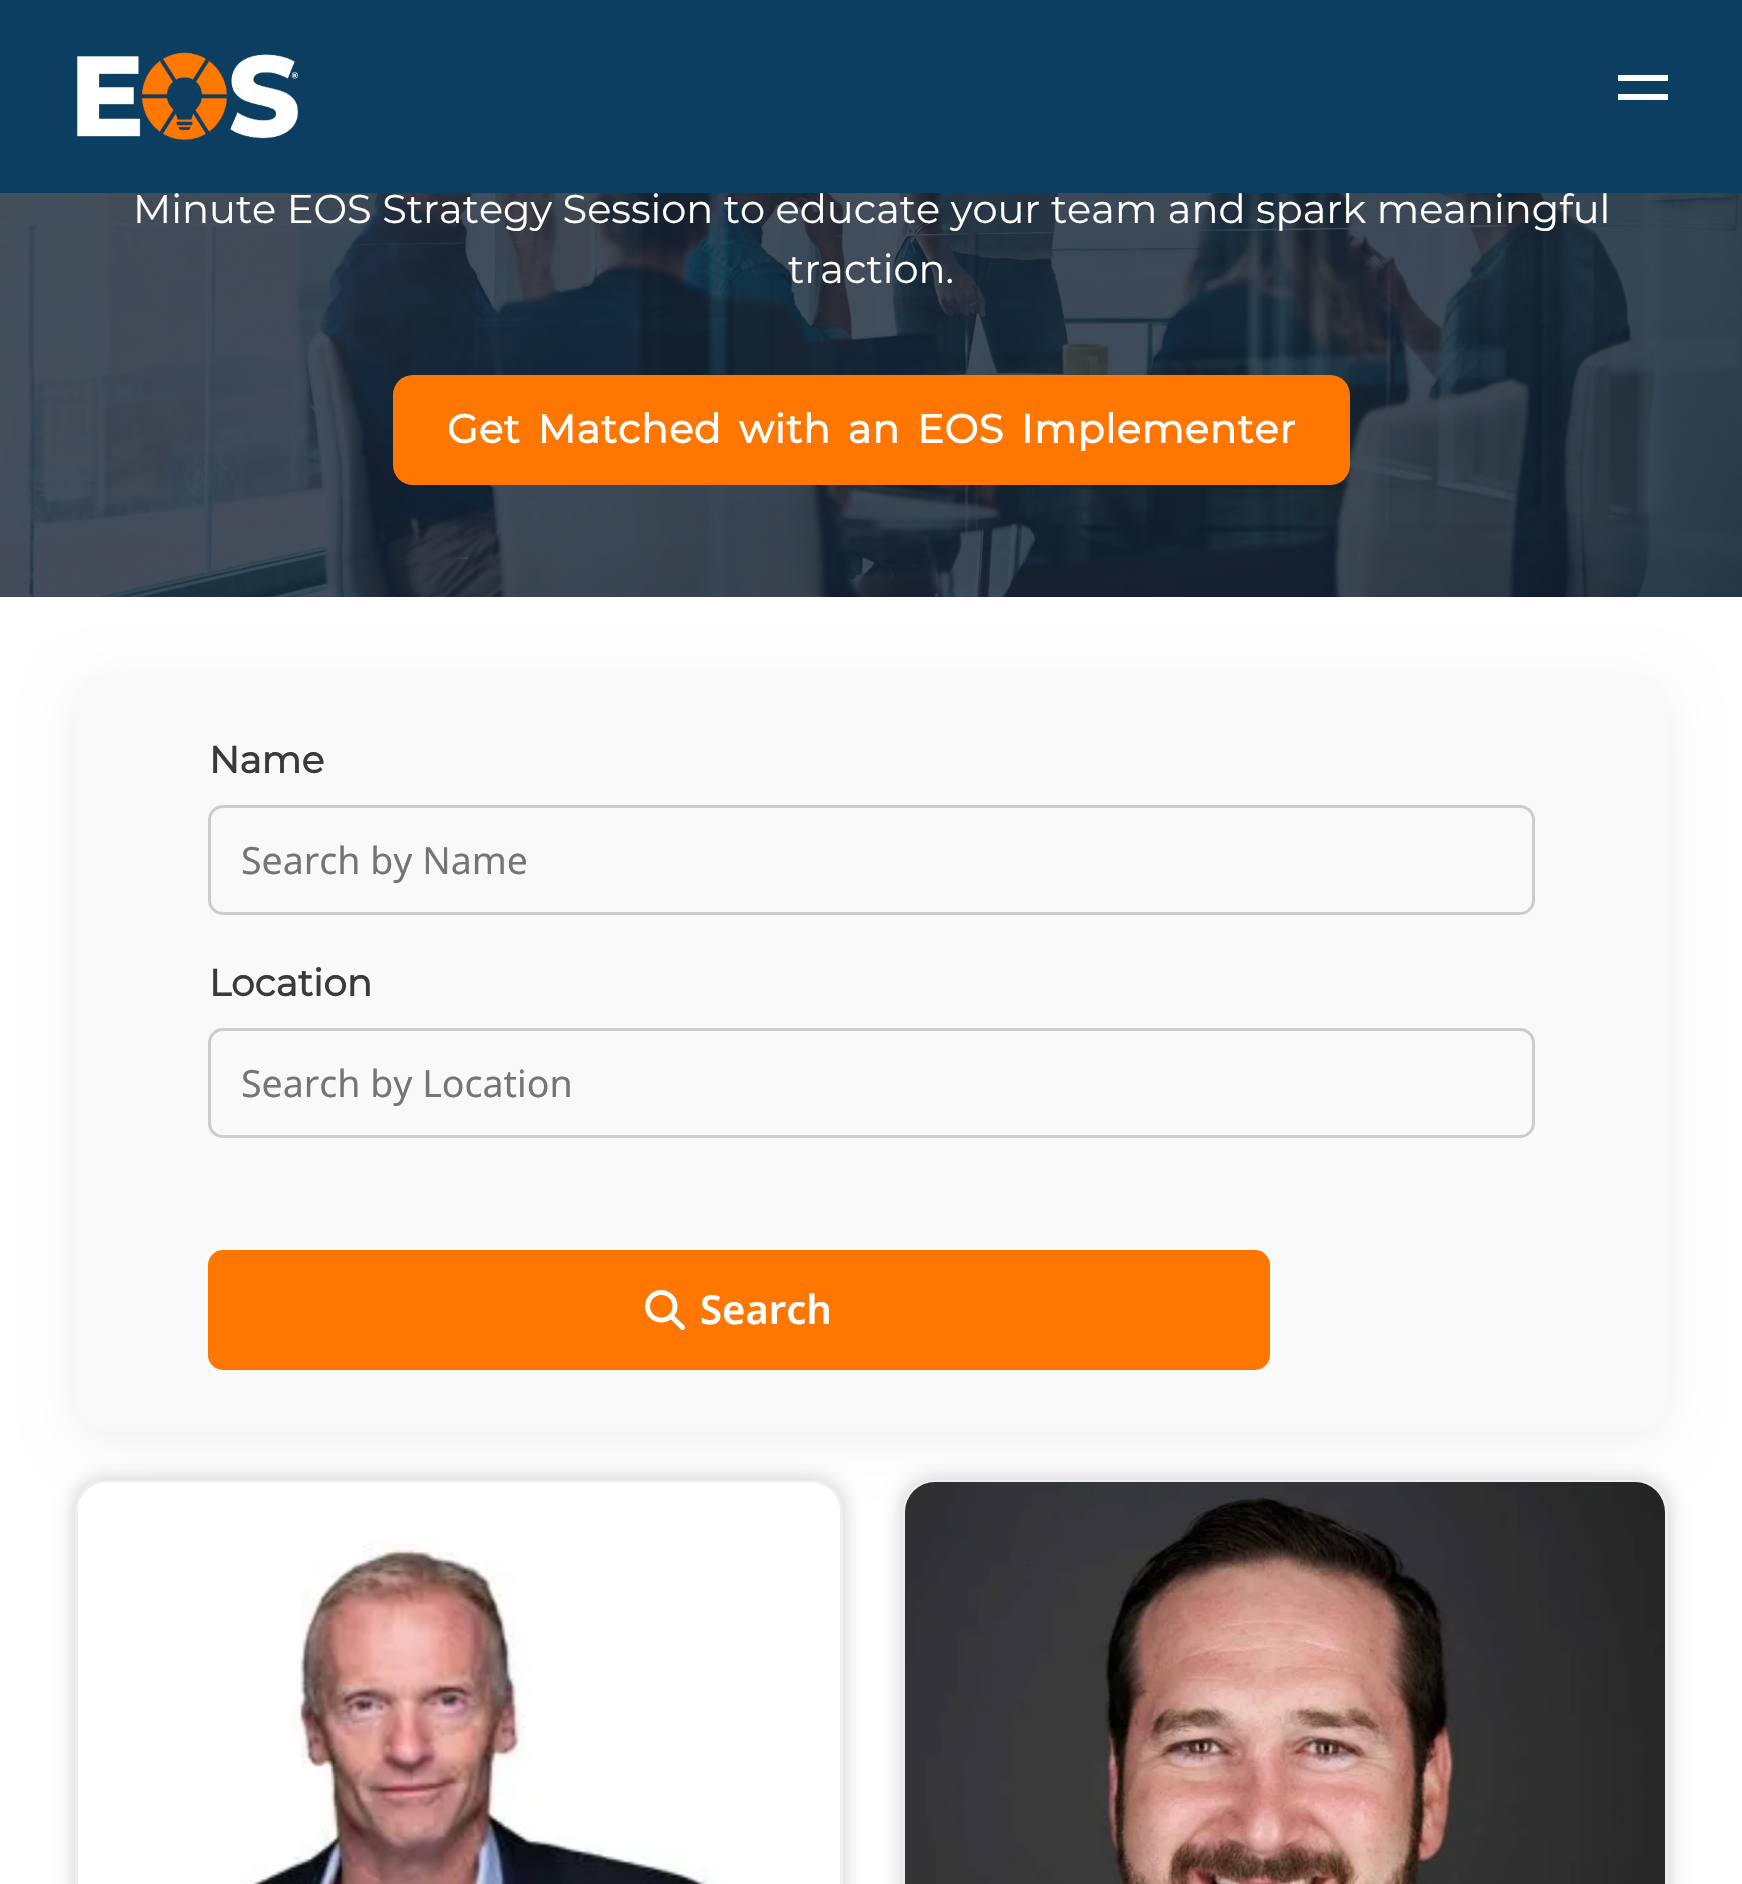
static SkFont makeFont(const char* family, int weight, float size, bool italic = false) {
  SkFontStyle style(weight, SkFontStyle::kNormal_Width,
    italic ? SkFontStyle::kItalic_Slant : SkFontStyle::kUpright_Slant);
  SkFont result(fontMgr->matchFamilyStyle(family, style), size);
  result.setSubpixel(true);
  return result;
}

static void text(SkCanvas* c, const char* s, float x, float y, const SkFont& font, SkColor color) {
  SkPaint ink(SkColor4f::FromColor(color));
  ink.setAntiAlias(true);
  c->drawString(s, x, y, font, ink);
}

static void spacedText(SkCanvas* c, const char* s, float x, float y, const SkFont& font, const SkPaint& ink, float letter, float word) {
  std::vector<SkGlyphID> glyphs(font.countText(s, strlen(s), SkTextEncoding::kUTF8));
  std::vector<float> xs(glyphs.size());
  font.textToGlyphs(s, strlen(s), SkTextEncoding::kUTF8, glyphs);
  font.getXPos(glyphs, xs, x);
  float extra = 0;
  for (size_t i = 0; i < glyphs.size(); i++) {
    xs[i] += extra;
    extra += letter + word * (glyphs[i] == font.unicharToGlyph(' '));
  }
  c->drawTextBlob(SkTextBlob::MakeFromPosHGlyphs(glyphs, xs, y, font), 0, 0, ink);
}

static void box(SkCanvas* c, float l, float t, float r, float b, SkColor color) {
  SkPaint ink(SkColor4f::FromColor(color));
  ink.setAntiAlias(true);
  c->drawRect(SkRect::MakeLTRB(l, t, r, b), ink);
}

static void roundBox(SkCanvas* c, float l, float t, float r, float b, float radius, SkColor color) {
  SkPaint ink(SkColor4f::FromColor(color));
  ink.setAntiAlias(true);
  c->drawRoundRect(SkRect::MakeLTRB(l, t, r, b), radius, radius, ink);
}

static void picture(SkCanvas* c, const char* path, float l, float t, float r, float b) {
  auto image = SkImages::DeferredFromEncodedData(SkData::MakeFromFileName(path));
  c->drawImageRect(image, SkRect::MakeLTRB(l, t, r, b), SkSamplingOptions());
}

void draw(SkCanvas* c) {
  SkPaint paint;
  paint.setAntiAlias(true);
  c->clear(0xffffffff);
  box(c, 0, 0, 1742, 193, 0xff0b3e60);
  picture(c, "img_01.png", 77, 52, 298, 140);
  box(c, 1618, 94, 1668, 100, 0xffffffff);
  box(c, 1618, 75, 1668, 81, 0xffffffff);
  picture(c, "img_02.png", 0, 193, 1742, 597);
  SkFont face1 = makeFont("Montserrat", 400, 40);
  text(c, "Minute EOS Strategy Session to educate your team and spark meaningful", 133, 223, face1, 0xffffffff);
  text(c, "traction.", 788, 283, face1, 0xffffffff);
  roundBox(c, 393, 375, 1350, 485, 20, 0xffff7700);
  SkFont face2 = makeFont("Montserrat", 700, 40);
  paint.setColor(0xffffffff);
  spacedText(c, "Get Matched with an EOS Implementer", 447, 443, face2, paint, 0.75f, 5.75f);
  paint.setColor(0x0f000000);
  paint.setMaskFilter(SkMaskFilter::MakeBlur(kNormal_SkBlurStyle, 25));
  c->drawRoundRect(SkRect::MakeLTRB(75, 683, 1668, 1440), 30, 30, paint);
  paint.setMaskFilter(nullptr);
  roundBox(c, 75, 673, 1668, 1430, 30, 0xfff9f9f9);
  SkFont face3 = makeFont("Montserrat", 700, 37.5f);
  text(c, "Name", 209, 773, face3, 0xff3a3a3a);
  paint.setStyle(SkPaint::kStroke_Style);
  paint.setStrokeWidth(3);
  paint.setColor(0xffcccccc);
  c->drawRoundRect(SkRect::MakeLTRB(209.5f, 806.5f, 1533.5f, 913.5f), 13.5f, 13.5f, paint);
  SkFont face4 = makeFont("Noto Sans", 400, 37.5f);
  text(c, "Search by Name", 241, 874, face4, 0xff757575);
  text(c, "Location", 209, 996, face3, 0xff3a3a3a);
  c->drawRoundRect(SkRect::MakeLTRB(209.5f, 1029.5f, 1533.5f, 1136.5f), 13.5f, 13.5f, paint);
  text(c, "Search by Location", 241, 1097, face4, 0xff757575);
  roundBox(c, 208, 1250, 1270, 1370, 15, 0xffff7700);
  picture(c, "img_03.png", 645, 1290, 685, 1330);
  SkFont face5 = makeFont("Noto Sans", 600, 40);
  text(c, "Search", 700, 1324, face5, 0xffffffff);
  paint.setStyle(SkPaint::kFill_Style);
  paint.setColor(0xffcbcbcb);
  paint.setMaskFilter(SkMaskFilter::MakeBlur(kNormal_SkBlurStyle, 10));
  c->drawRoundRect(SkRect::MakeLTRB(75, 1480, 843, 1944), 30, 30, paint);
  paint.setMaskFilter(nullptr);
  paint.setColor(0xffffffff);
  c->drawRoundRect(SkRect::MakeLTRB(76.5f, 1481.5f, 841.5f, 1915.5f), 28.5f, 28.5f, paint);
  paint.setStyle(SkPaint::kStroke_Style);
  paint.setColor(0xffefecf3);
  c->drawRoundRect(SkRect::MakeLTRB(76.5f, 1481.5f, 841.5f, 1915.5f), 28.5f, 28.5f, paint);
  picture(c, "img_04.png", 78, 1482, 822, 1884);
  paint.setStyle(SkPaint::kFill_Style);
  paint.setColor(0xffcbcbcb);
  paint.setMaskFilter(SkMaskFilter::MakeBlur(kNormal_SkBlurStyle, 10));
  c->drawRoundRect(SkRect::MakeLTRB(903, 1480, 1668, 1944), 30, 30, paint);
  paint.setMaskFilter(nullptr);
  paint.setColor(0xffffffff);
  c->drawRoundRect(SkRect::MakeLTRB(904.5f, 1481.5f, 1666.5f, 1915.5f), 28.5f, 28.5f, paint);
  paint.setStyle(SkPaint::kStroke_Style);
  paint.setColor(0xffefecf3);
  c->drawRoundRect(SkRect::MakeLTRB(904.5f, 1481.5f, 1666.5f, 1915.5f), 28.5f, 28.5f, paint);
  picture(c, "img_05.png", 905, 1482, 1665, 1884);
}
